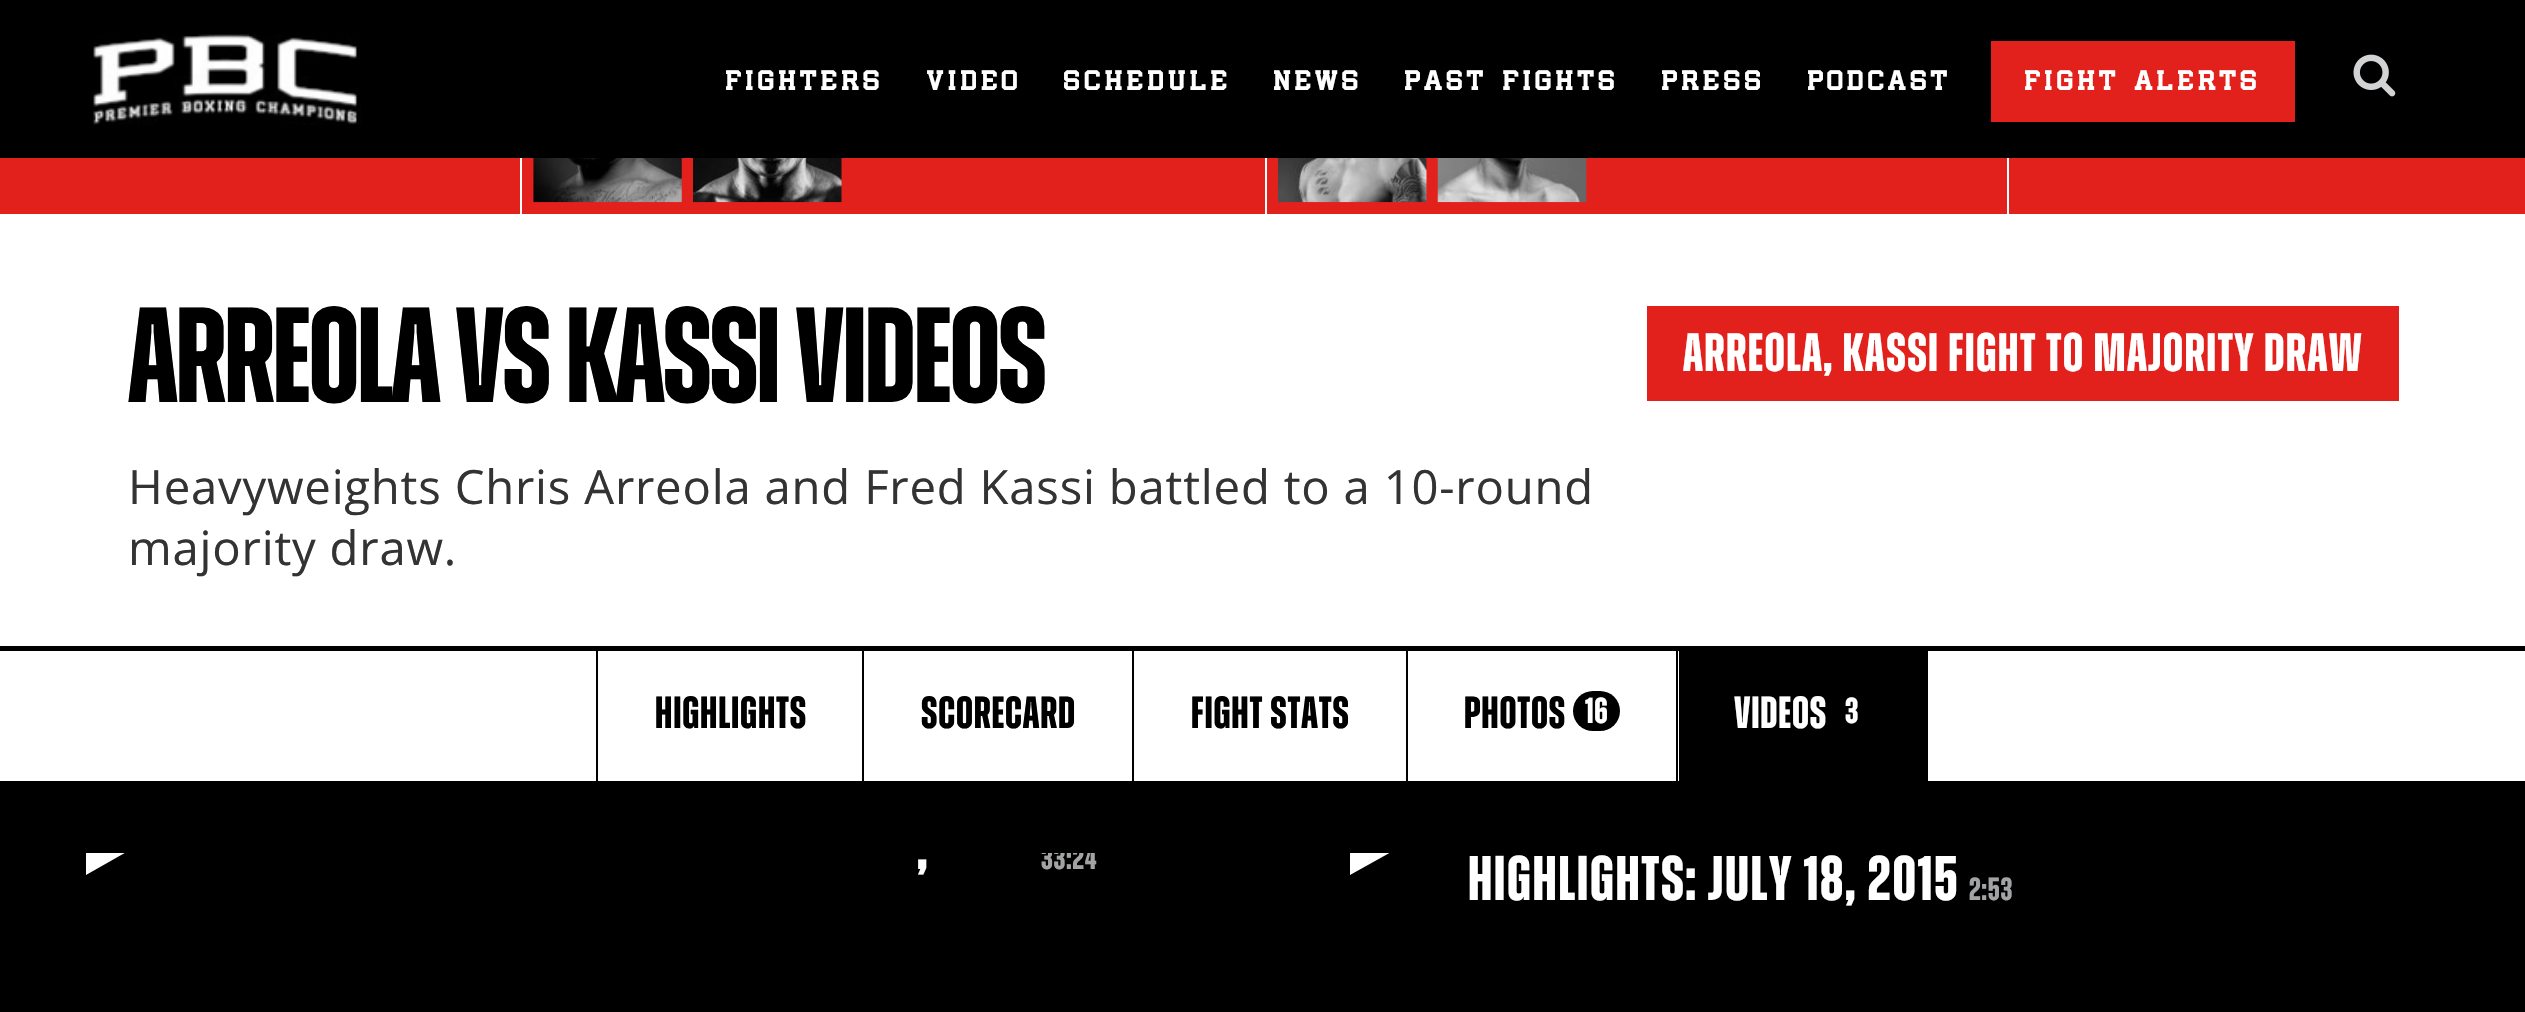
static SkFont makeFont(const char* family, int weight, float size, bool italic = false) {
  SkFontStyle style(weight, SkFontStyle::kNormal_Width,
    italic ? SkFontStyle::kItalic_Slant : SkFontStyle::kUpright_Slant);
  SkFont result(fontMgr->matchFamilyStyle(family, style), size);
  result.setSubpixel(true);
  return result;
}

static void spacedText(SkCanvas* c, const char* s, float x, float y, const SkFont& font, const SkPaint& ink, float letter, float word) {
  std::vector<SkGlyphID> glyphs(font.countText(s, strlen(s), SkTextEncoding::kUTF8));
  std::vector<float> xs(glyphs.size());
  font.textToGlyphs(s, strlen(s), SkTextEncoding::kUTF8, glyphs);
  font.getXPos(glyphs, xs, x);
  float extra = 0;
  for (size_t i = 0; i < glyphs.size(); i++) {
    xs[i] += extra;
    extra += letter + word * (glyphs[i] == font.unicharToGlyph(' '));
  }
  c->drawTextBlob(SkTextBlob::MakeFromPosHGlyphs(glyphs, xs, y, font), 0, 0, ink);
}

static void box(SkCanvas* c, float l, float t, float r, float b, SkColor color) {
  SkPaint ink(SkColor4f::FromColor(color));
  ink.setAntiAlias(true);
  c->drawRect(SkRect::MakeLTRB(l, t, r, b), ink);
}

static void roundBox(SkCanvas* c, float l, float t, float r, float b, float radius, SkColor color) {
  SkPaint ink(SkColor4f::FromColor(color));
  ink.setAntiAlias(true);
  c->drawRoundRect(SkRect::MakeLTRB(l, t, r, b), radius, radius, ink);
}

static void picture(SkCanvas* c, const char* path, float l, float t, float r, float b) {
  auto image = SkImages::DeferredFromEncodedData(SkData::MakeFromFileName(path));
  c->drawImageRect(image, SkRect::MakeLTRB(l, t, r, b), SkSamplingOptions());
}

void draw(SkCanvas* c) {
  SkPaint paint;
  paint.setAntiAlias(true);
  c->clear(0xffffffff);
  box(c, 0, 0, 2525, 158, 0xff000000);
  picture(c, "img_01.png", 93, 34, 361, 125);
  SkFont face1 = makeFont("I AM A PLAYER", 700, 27);
  paint.setColor(0xffffffff);
  spacedText(c, "FIGHTERS", 725, 90, face1, paint, 4.5f, 0);
  spacedText(c, "VIDEO", 926, 90, face1, paint, 4.5f, 0);
  spacedText(c, "SCHEDULE", 1063, 90, face1, paint, 4.5f, 0);
  spacedText(c, "NEWS", 1273, 90, face1, paint, 4.5f, 0);
  spacedText(c, "PAST FIGHTS", 1404, 90, face1, paint, 4.5f, 0);
  spacedText(c, "PRESS", 1661, 90, face1, paint, 4.5f, 0);
  spacedText(c, "PODCAST", 1807, 90, face1, paint, 4.5f, 0);
  box(c, 1991, 41, 2295, 122, 0xffe2211c);
  spacedText(c, "FIGHT ALERTS", 2024, 90, face1, paint, 4.5f, 0);
  picture(c, "img_02.png", 2353, 54, 2396, 97);
  box(c, 0, 158, 2525, 214, 0xffe2211c);
  box(c, 520, 158, 522, 214, 0xffffffff);
  picture(c, "img_03.png", 533, 158, 682, 203);
  picture(c, "img_04.png", 693, 158, 842, 203);
  box(c, 2007, 158, 2009, 214, 0xffffffff);
  box(c, 1265, 158, 1267, 214, 0xffffffff);
  picture(c, "img_05.png", 1278, 158, 1427, 203);
  picture(c, "img_06.png", 1437, 158, 1587, 203);
  SkFont face2 = makeFont("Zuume", 700, 135);
  paint.setColor(0xff000000);
  spacedText(c, "ARREOLA VS KASSI VIDEOS", 128, 402, face2, paint, -2.4f, 0);
  box(c, 1647, 306, 2399, 401, 0xffe2211c);
  SkFont face3 = makeFont("Zuume", 700, 54);
  paint.setColor(0xffffffff);
  spacedText(c, "ARREOLA, KASSI FIGHT TO MAJORITY DRAW", 1683, 371, face3, paint, 1.35f, 0);
  SkFont face4 = makeFont("Open Sans", 400, 47.25f);
  paint.setColor(0xff333333);
  spacedText(c, "Heavyweights Chris Arreola and Fred Kassi battled to a 10-round", 128, 504, face4, paint, 0.8f, 0);
  spacedText(c, "majority draw.", 128, 565, face4, paint, 0.8f, 0);
  box(c, 0, 646, 2525, 651, 0xff000000);
  box(c, 0, 781, 2525, 1012, 0xff000000);
  box(c, 596, 650, 598, 781, 0xff000000);
  SkFont face5 = makeFont("Zuume", 700, 45);
  paint.setColor(0xff000000);
  spacedText(c, "HIGHLIGHTS", 655, 728, face5, paint, 0.8f, 0);
  box(c, 862, 650, 864, 781, 0xff000000);
  spacedText(c, "SCORECARD", 921, 728, face5, paint, 0.8f, 0);
  box(c, 1132, 650, 1134, 781, 0xff000000);
  spacedText(c, "FIGHT STATS", 1191, 728, face5, paint, 0.8f, 0);
  box(c, 1406, 650, 1408, 781, 0xff000000);
  spacedText(c, "PHOTOS", 1464, 728, face5, paint, 0.8f, 0);
  roundBox(c, 1573, 691, 1620, 731, 20, 0xff000000);
  SkFont face6 = makeFont("Zuume", 700, 36);
  paint.setColor(0xffffffff);
  spacedText(c, "16", 1585, 723, face6, paint, 0.8f, 0);
  box(c, 1926, 650, 1928, 781, 0xff000000);
  box(c, 1676, 650, 1678, 781, 0xff000000);
  box(c, 1679, 651, 1926, 781, 0xff000000);
  spacedText(c, "VIDEOS", 1734, 728, face5, paint, 0.8f, 0);
  spacedText(c, "3", 1845, 723, face6, paint, 0.8f, 0);
  c->save();
  c->clipRect(SkRect::MakeLTRB(36, 853, 1229, 916));
  c->drawPath(SkPathBuilder().moveTo(86, 875).lineTo(86, 817).lineTo(137, 846).close().detach(), paint);
  c->restore();
  SkFont face7 = makeFont("Zuume", 700, 63);
  spacedText(c, ",", 917, 869, face7, paint, 1.6f, 0);
  c->save();
  c->clipRect(SkRect::MakeLTRB(36, 853, 1229, 916));
  SkFont face8 = makeFont("Zuume", 700, 32);
  paint.setColor(0xffa1a3a4);
  spacedText(c, "33:24", 1041, 869, face8, paint, 0.8f, 0);
  c->restore();
  c->save();
  c->clipRect(SkRect::MakeLTRB(1301, 853, 2491, 916));
  paint.setColor(0xffffffff);
  c->drawPath(SkPathBuilder().moveTo(1350, 875).lineTo(1350, 817).lineTo(1402, 846).close().detach(), paint);
  c->restore();
  spacedText(c, "HIGHLIGHTS: JULY 18, 2015", 1468, 900, face7, paint, 1.6f, 0);
  paint.setColor(0xffa1a3a4);
  spacedText(c, "2:53", 1969, 900, face8, paint, 0.8f, 0);
}
